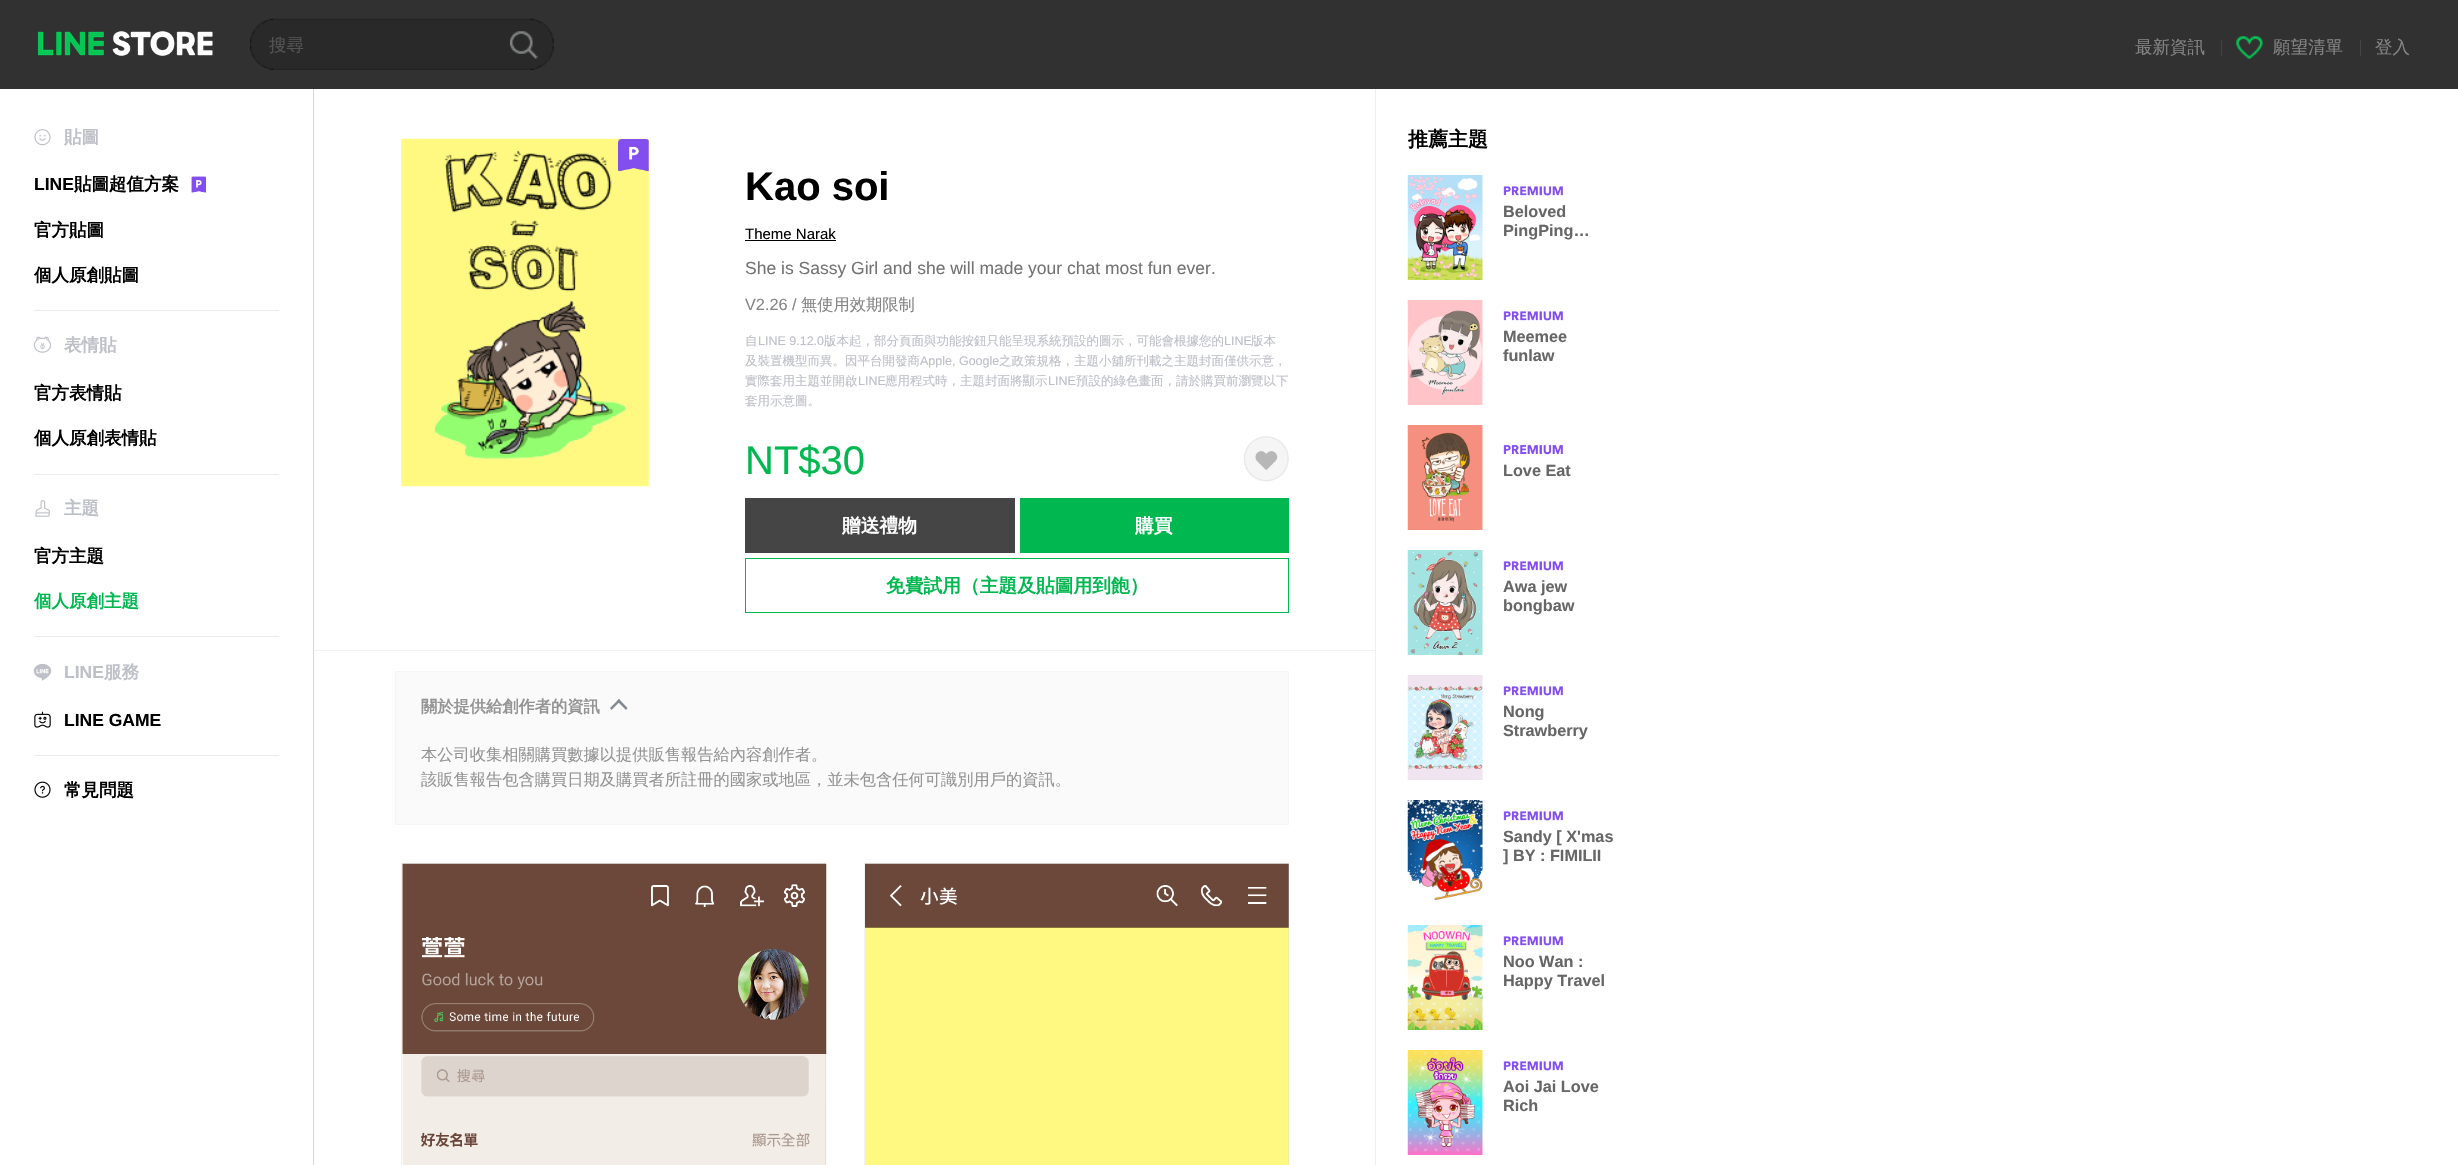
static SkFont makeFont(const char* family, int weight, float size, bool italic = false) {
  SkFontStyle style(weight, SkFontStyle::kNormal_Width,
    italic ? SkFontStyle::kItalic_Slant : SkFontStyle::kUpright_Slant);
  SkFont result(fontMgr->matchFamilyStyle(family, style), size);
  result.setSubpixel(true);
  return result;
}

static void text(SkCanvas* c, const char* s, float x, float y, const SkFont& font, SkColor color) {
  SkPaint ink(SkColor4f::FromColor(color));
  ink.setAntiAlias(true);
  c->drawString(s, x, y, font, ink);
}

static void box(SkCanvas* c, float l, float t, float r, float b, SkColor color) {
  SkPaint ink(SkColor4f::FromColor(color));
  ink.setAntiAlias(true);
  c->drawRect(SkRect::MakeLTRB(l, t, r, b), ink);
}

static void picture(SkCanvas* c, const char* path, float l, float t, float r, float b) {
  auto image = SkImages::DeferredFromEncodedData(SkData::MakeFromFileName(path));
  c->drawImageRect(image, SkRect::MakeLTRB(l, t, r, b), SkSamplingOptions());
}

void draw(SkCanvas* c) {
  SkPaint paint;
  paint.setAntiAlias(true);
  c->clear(0xffffffff);
  box(c, 0, 0, 2458, 89, 0xff313131);
  picture(c, "img_01.png", 37, 31, 213, 56);
  picture(c, "img_02.png", 250, 18, 554, 70);
  SkFont face1 = makeFont("WenQuanYi Zen Hei", 500, 17.5f);
  text(c, "搜尋", 269, 51, face1, 0xff545454);
  picture(c, "img_03.png", 510, 31, 538, 59);
  text(c, "最新資訊", 2135, 53, face1, 0xff848484);
  box(c, 2221, 40, 2222, 56, 0xff444444);
  picture(c, "img_04.png", 2236, 36, 2263, 59);
  text(c, "願望清單", 2273, 53, face1, 0xff848484);
  box(c, 2360, 40, 2361, 56, 0xff444444);
  text(c, "登入", 2375, 53, face1, 0xff848484);
  picture(c, "img_05.png", 34, 129, 51, 146);
  SkFont face2 = makeFont("WenQuanYi Zen Hei", 700, 17.5f);
  text(c, "貼圖", 64, 143, face2, 0xffbec0c7);
  SkFont face3 = makeFont("Liberation Sans", 700, 17.5f);
  text(c, "LINE", 34, 190, face3, 0xff000000);
  text(c, "貼圖超值方案", 74, 190, face2, 0xff000000);
  picture(c, "img_06.png", 191, 176, 206, 193);
  text(c, "官方貼圖", 34, 236, face2, 0xff000000);
  text(c, "個人原創貼圖", 34, 281, face2, 0xff000000);
  box(c, 34, 310, 279, 311, 0xffebebeb);
  picture(c, "img_07.png", 33, 336, 52, 353);
  text(c, "表情貼", 64, 351, face2, 0xffbec0c7);
  text(c, "官方表情貼", 34, 399, face2, 0xff000000);
  text(c, "個人原創表情貼", 34, 444, face2, 0xff000000);
  box(c, 34, 474, 279, 475, 0xffebebeb);
  picture(c, "img_08.png", 35, 500, 50, 517);
  text(c, "主題", 64, 514, face2, 0xffbec0c7);
  text(c, "官方主題", 34, 562, face2, 0xff000000);
  text(c, "個人原創主題", 34, 607, face2, 0xff00b84f);
  box(c, 34, 636, 279, 637, 0xffebebeb);
  picture(c, "img_09.png", 33, 663, 52, 681);
  text(c, "LINE", 64, 678, face3, 0xffbec0c7);
  text(c, "服務", 104, 678, face2, 0xffbec0c7);
  picture(c, "img_10.png", 34, 711, 51, 728);
  text(c, "LINE GAME", 64, 726, face3, 0xff000000);
  box(c, 34, 755, 279, 756, 0xffebebeb);
  picture(c, "img_11.png", 34, 781, 51, 798);
  text(c, "常見問題", 64, 796, face2, 0xff000000);
  box(c, 313, 89, 314, 1165, 0xffd6d6d6);
  picture(c, "img_12.png", 401, 138, 649, 487);
  picture(c, "img_13.png", 618, 139, 649, 172);
  SkFont face4 = makeFont("Liberation Sans", 700, 40);
  text(c, "Kao soi", 745, 200, face4, 0xff000000);
  SkFont face5 = makeFont("Liberation Sans", 400, 15);
  text(c, "Theme Narak", 745, 239, face5, 0xff000000);
  box(c, 745, 240, 836, 241, 0xff000000);
  SkFont face6 = makeFont("Liberation Sans", 400, 17.5f);
  text(c, "She is Sassy Girl and she will made your chat most fun ever.", 745, 274, face6, 0xff737373);
  SkFont face7 = makeFont("Liberation Sans", 400, 16.25f);
  text(c, "V2.26 /", 745, 310, face7, 0xff848484);
  SkFont face8 = makeFont("WenQuanYi Zen Hei", 500, 16.25f);
  text(c, "無使用效期限制", 801, 310, face8, 0xff848484);
  SkFont face9 = makeFont("WenQuanYi Zen Hei", 500, 12.5f);
  text(c, "自", 745, 345, face9, 0xffbec0c7);
  SkFont face10 = makeFont("Liberation Sans", 400, 12.5f);
  text(c, "LINE 9.12.0", 758, 345, face10, 0xffbec0c7);
  text(c, "版本起，部分頁面與功能按鈕只能呈現系統預設的圖示，可能會根據您的", 824, 345, face9, 0xffbec0c7);
  text(c, "LINE", 1224, 345, face10, 0xffbec0c7);
  text(c, "版本", 1251, 345, face9, 0xffbec0c7);
  text(c, "及裝置機型而異。因平台開發商", 745, 365, face9, 0xffbec0c7);
  text(c, "Apple, Google", 920, 365, face10, 0xffbec0c7);
  text(c, "之政策規格，主題小舖所刊載之主題封面僅供示意，", 999, 365, face9, 0xffbec0c7);
  text(c, "實際套用主題並開啟", 745, 385, face9, 0xffbec0c7);
  text(c, "LINE", 858, 385, face10, 0xffbec0c7);
  text(c, "應用程式時，主題封面將顯示", 885, 385, face9, 0xffbec0c7);
  text(c, "LINE", 1048, 385, face10, 0xffbec0c7);
  text(c, "預設的綠色畫面，請於購買前瀏覽以下", 1076, 385, face9, 0xffbec0c7);
  text(c, "套用示意圖。", 745, 405, face9, 0xffbec0c7);
  SkFont face11 = makeFont("Liberation Sans", 400, 40);
  text(c, "NT$30", 745, 474, face11, 0xff00b84f);
  picture(c, "img_14.png", 1243, 436, 1289, 482);
  box(c, 745, 498, 1015, 553, 0xff454545);
  SkFont face12 = makeFont("WenQuanYi Zen Hei", 700, 18.75f);
  text(c, "贈送禮物", 842, 532, face12, 0xffffffff);
  box(c, 1020, 498, 1289, 553, 0xff00b84f);
  text(c, "購買", 1135, 532, face12, 0xffffffff);
  paint.setStyle(SkPaint::kStroke_Style);
  paint.setStrokeWidth(1);
  paint.setColor(0xff00b84f);
  c->drawRect(SkRect::MakeLTRB(745.5f, 558.5f, 1288.5f, 612.5f), paint);
  text(c, "免費試用（主題及貼圖用到飽）", 886, 592, face12, 0xff00b84f);
  box(c, 314, 650, 1376, 651, 0xfff2f2f2);
  box(c, 1375, 89, 1376, 1165, 0xffefefef);
  paint.setStyle(SkPaint::kFill_Style);
  paint.setColor(0xfffafafa);
  c->drawRect(SkRect::MakeLTRB(395.5f, 671.5f, 1288.5f, 824.5f), paint);
  paint.setStyle(SkPaint::kStroke_Style);
  paint.setColor(0xfff5f5f5);
  c->drawRect(SkRect::MakeLTRB(395.5f, 671.5f, 1288.5f, 824.5f), paint);
  SkFont face13 = makeFont("WenQuanYi Zen Hei", 700, 16.25f);
  text(c, "關於提供給創作者的資訊", 421, 712, face13, 0xff949494);
  paint.setStyle(SkPaint::kFill_Style);
  paint.setColor(0xff848a94);
  c->drawPath(SkPathBuilder().moveTo(610, 708).lineTo(619, 699).lineTo(620.5f, 701).lineTo(611.5f, 710).close().detach(), paint);
  c->drawPath(SkPathBuilder().moveTo(617, 701).lineTo(619, 699).lineTo(627.5f, 708).lineTo(626, 710).close().detach(), paint);
  text(c, "本公司收集相關購買數據以提供販售報告給內容創作者。", 421, 760, face8, 0xff949494);
  text(c, "該販售報告包含購買日期及購買者所註冊的國家或地區，並未包含任何可識別用戶的資訊。", 421, 785, face8, 0xff949494);
  picture(c, "img_15.png", 402, 863, 827, 1165);
  paint.setStyle(SkPaint::kStroke_Style);
  paint.setColor(0x0d000000);
  c->drawRect(SkRect::MakeLTRB(401.5f, 863.5f, 825.5f, 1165.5f), paint);
  picture(c, "img_16.png", 865, 863, 1289, 1165);
  c->drawRect(SkRect::MakeLTRB(864.5f, 863.5f, 1288.5f, 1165.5f), paint);
  SkFont face14 = makeFont("WenQuanYi Zen Hei", 700, 20);
  text(c, "推薦主題", 1408, 146, face14, 0xff000000);
  picture(c, "img_17.png", 1407, 175, 1483, 280);
  picture(c, "img_18.png", 1503, 186, 1563, 196);
  SkFont face15 = makeFont("Liberation Sans", 700, 16.25f);
  text(c, "Beloved", 1503, 217, face15, 0xff666666);
  text(c, "PingPing…", 1503, 236, face15, 0xff666666);
  picture(c, "img_19.png", 1407, 300, 1483, 405);
  picture(c, "img_18.png", 1503, 311, 1563, 321);
  text(c, "Meemee", 1503, 342, face15, 0xff666666);
  text(c, "funlaw", 1503, 361, face15, 0xff666666);
  picture(c, "img_20.png", 1407, 425, 1483, 530);
  picture(c, "img_21.png", 1503, 444, 1563, 455);
  text(c, "Love Eat", 1503, 476, face15, 0xff666666);
  picture(c, "img_22.png", 1407, 550, 1483, 655);
  picture(c, "img_18.png", 1503, 561, 1563, 571);
  text(c, "Awa jew", 1503, 592, face15, 0xff666666);
  text(c, "bongbaw", 1503, 611, face15, 0xff666666);
  picture(c, "img_23.png", 1407, 675, 1483, 780);
  picture(c, "img_18.png", 1503, 686, 1563, 696);
  text(c, "Nong", 1503, 717, face15, 0xff666666);
  text(c, "Strawberry", 1503, 736, face15, 0xff666666);
  picture(c, "img_24.png", 1407, 800, 1483, 900);
  picture(c, "img_18.png", 1503, 811, 1563, 821);
  text(c, "Sandy [ X'mas", 1503, 842, face15, 0xff666666);
  c->save();
  c->clipRect(SkRect::MakeLTRB(1503, 828, 1618, 865));
  text(c, "] BY : FIMILII", 1503, 861, face15, 0xff666666);
  c->restore();
  picture(c, "img_25.png", 1407, 925, 1483, 1030);
  picture(c, "img_18.png", 1503, 936, 1563, 946);
  text(c, "Noo Wan :", 1503, 967, face15, 0xff666666);
  text(c, "Happy Travel", 1503, 986, face15, 0xff666666);
  picture(c, "img_26.png", 1407, 1050, 1483, 1155);
  picture(c, "img_18.png", 1503, 1061, 1563, 1071);
  text(c, "Aoi Jai Love", 1503, 1092, face15, 0xff666666);
  text(c, "Rich", 1503, 1111, face15, 0xff666666);
}
